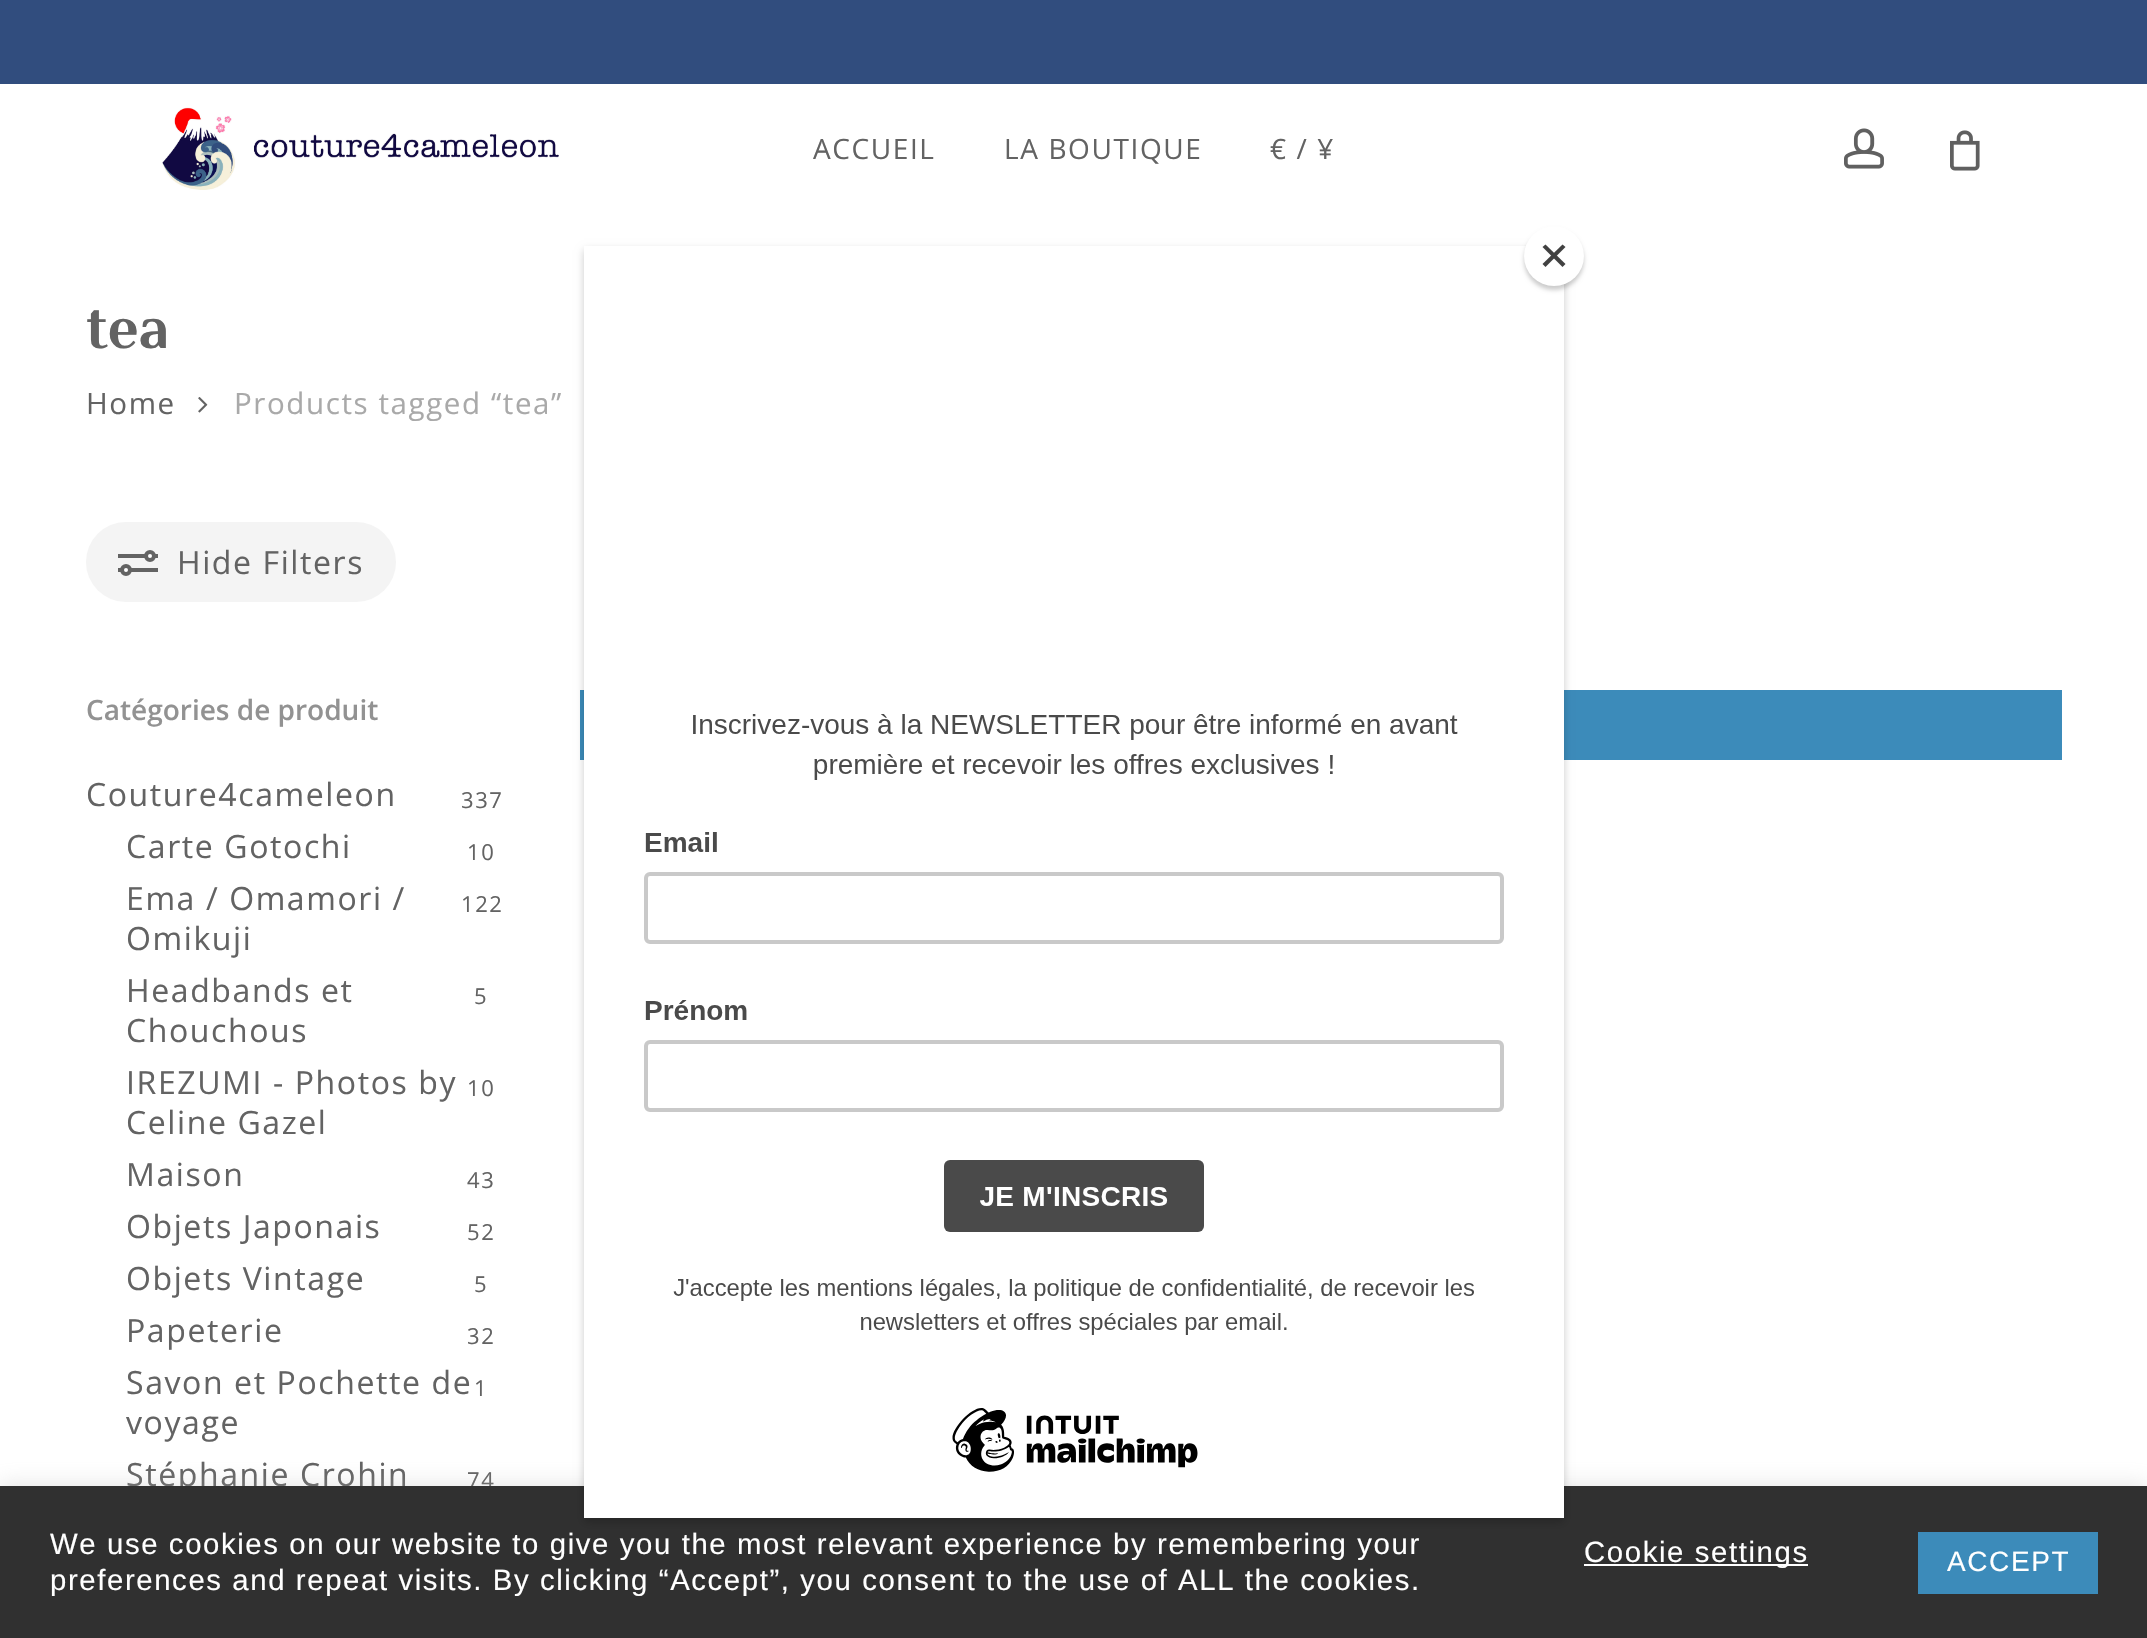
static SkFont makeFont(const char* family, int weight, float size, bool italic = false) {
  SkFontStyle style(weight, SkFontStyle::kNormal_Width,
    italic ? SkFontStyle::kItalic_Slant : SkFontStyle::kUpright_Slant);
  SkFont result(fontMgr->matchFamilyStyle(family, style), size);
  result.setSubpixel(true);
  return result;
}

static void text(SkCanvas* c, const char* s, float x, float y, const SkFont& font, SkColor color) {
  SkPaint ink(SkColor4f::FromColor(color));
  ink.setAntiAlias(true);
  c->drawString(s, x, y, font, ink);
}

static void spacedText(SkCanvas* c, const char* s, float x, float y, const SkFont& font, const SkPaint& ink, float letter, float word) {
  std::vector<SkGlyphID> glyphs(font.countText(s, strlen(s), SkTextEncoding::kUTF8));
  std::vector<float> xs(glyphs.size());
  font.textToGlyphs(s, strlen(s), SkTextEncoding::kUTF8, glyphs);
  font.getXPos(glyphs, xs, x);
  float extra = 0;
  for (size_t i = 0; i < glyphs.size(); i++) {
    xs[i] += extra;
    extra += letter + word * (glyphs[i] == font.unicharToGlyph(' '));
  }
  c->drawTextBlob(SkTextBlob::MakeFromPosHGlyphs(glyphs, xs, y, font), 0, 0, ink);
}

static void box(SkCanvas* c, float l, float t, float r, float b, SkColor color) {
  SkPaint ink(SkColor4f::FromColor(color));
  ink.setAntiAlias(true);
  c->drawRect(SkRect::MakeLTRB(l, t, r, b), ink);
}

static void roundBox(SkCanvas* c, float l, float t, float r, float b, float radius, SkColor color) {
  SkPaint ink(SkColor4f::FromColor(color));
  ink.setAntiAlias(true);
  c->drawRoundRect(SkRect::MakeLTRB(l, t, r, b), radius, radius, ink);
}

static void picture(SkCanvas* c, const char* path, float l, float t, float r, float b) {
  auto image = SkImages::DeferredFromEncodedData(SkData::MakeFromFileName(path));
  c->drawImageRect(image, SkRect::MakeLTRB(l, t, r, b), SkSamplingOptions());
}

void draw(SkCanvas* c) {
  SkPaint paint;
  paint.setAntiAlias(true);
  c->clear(0xffffffff);
  box(c, 0, 0, 2147, 84, 0xff314d7e);
  picture(c, "img_01.png", 162, 107, 559, 190);
  SkFont face1 = makeFont("Open Sans", 400, 28);
  paint.setColor(0xff636363);
  spacedText(c, "ACCUEIL", 813, 159, face1, paint, 1.6f, 0);
  spacedText(c, "LA BOUTIQUE", 1004, 159, face1, paint, 1.6f, 0);
  spacedText(c, "€ / ¥", 1270, 159, face1, paint, 1.6f, 0);
  picture(c, "img_02.png", 1844, 128, 1884, 169);
  picture(c, "img_03.png", 1950, 130, 1980, 171);
  SkFont face2 = makeFont("Philosopher", 700, 61);
  text(c, "tea", 86, 348, face2, 0xff636363);
  SkFont face3 = makeFont("Open Sans", 400, 29.5f);
  spacedText(c, "Home", 86, 414, face3, paint, 1.6f, 0);
  picture(c, "img_04.png", 198, 397, 208, 413);
  paint.setColor(0xffa9a9a9);
  spacedText(c, "Products tagged “tea”", 234, 414, face3, paint, 1.6f, 0);
  roundBox(c, 86, 522, 396, 602, 40, 0xfff4f4f4);
  box(c, 118, 554, 158, 558, 0xff636363);
  box(c, 118, 568, 158, 572, 0xff636363);
  paint.setColor(0xffffffff);
  c->drawCircle(150, 556, 4, paint);
  paint.setStyle(SkPaint::kStroke_Style);
  paint.setStrokeWidth(4);
  paint.setColor(0xff636363);
  c->drawCircle(150, 556, 4, paint);
  paint.setStyle(SkPaint::kFill_Style);
  paint.setColor(0xffffffff);
  c->drawCircle(126, 570, 4, paint);
  paint.setStyle(SkPaint::kStroke_Style);
  paint.setColor(0xff636363);
  c->drawCircle(126, 570, 4, paint);
  SkFont face4 = makeFont("Open Sans", 400, 32);
  paint.setStyle(SkPaint::kFill_Style);
  spacedText(c, "Hide Filters", 177, 574, face4, paint, 1.6f, 0);
  SkFont face5 = makeFont("Open Sans", 600, 28);
  text(c, "Catégories de produit", 86, 720, face5, 0xff929292);
  spacedText(c, "Couture4cameleon", 86, 806, face4, paint, 1.6f, 0);
  SkFont face6 = makeFont("Open Sans", 400, 22);
  spacedText(c, "337", 461, 808, face6, paint, 1.6f, 0);
  spacedText(c, "Carte Gotochi", 126, 858, face4, paint, 1.6f, 0);
  spacedText(c, "10", 467, 860, face6, paint, 1.6f, 0);
  spacedText(c, "Ema / Omamori /", 126, 910, face4, paint, 1.6f, 0);
  spacedText(c, "Omikuji", 126, 950, face4, paint, 1.6f, 0);
  spacedText(c, "122", 461, 912, face6, paint, 1.6f, 0);
  spacedText(c, "Headbands et", 126, 1002, face4, paint, 1.6f, 0);
  spacedText(c, "Chouchous", 126, 1042, face4, paint, 1.6f, 0);
  spacedText(c, "5", 474, 1004, face6, paint, 1.6f, 0);
  spacedText(c, "IREZUMI - Photos by", 126, 1094, face4, paint, 1.6f, 0);
  spacedText(c, "Celine Gazel", 126, 1134, face4, paint, 1.6f, 0);
  spacedText(c, "10", 467, 1096, face6, paint, 1.6f, 0);
  spacedText(c, "Maison", 126, 1186, face4, paint, 1.6f, 0);
  spacedText(c, "43", 467, 1188, face6, paint, 1.6f, 0);
  spacedText(c, "Objets Japonais", 126, 1238, face4, paint, 1.6f, 0);
  spacedText(c, "52", 467, 1240, face6, paint, 1.6f, 0);
  spacedText(c, "Objets Vintage", 126, 1290, face4, paint, 1.6f, 0);
  spacedText(c, "5", 474, 1292, face6, paint, 1.6f, 0);
  spacedText(c, "Papeterie", 126, 1342, face4, paint, 1.6f, 0);
  spacedText(c, "32", 467, 1344, face6, paint, 1.6f, 0);
  spacedText(c, "Savon et Pochette de", 126, 1394, face4, paint, 1.6f, 0);
  spacedText(c, "voyage", 126, 1434, face4, paint, 1.6f, 0);
  spacedText(c, "1", 474, 1396, face6, paint, 1.6f, 0);
  spacedText(c, "Stéphanie Crohin", 126, 1486, face4, paint, 1.6f, 0);
  spacedText(c, "74", 467, 1488, face6, paint, 1.6f, 0);
  box(c, 580, 690, 2062, 760, 0xff3c8bba);
  paint.setColor(0x33000000);
  paint.setMaskFilter(SkMaskFilter::MakeBlur(kNormal_SkBlurStyle, 2));
  c->drawRoundRect(SkRect::MakeLTRB(1524, 230, 1584, 290), 30, 30, paint);
  paint.setMaskFilter(nullptr);
  paint.setColor(0x4dacabab);
  paint.setMaskFilter(SkMaskFilter::MakeBlur(kNormal_SkBlurStyle, 10));
  c->drawRect(SkRect::MakeLTRB(0, 1484, 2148, 1636), paint);
  paint.setMaskFilter(nullptr);
  box(c, 0, 1486, 2147, 1638, 0xff303030);
  c->save();
  c->clipPath(SkPathBuilder(SkPathFillType::kEvenOdd).moveTo(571, 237).lineTo(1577, 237).lineTo(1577, 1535).lineTo(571, 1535).close().moveTo(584, 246).lineTo(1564, 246).lineTo(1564, 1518).lineTo(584, 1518).close().detach(), true);
  paint.setColor(0x33000000);
  paint.setMaskFilter(SkMaskFilter::MakeBlur(kNormal_SkBlurStyle, 4));
  c->drawRect(SkRect::MakeLTRB(584, 250, 1564, 1522), paint);
  paint.setMaskFilter(nullptr);
  c->restore();
  paint.setColor(0xffffffff);
  c->drawCircle(1554, 256, 30, paint);
  paint.setColor(0xff414141);
  c->drawPath(SkPathBuilder().moveTo(1562.5f, 244.5f).lineTo(1565.5f, 247).lineTo(1545.5f, 267).lineTo(1542.5f, 264).close().detach(), paint);
  c->drawPath(SkPathBuilder().moveTo(1542.5f, 247).lineTo(1545.5f, 244.5f).lineTo(1565.5f, 264).lineTo(1562.5f, 267).close().detach(), paint);
  picture(c, "img_05.png", 584, 690, 1564, 1518);
  SkFont face7 = makeFont("Liberation Sans", 400, 29.35f);
  paint.setColor(0xffffffff);
  spacedText(c, "We use cookies on our website to give you the most relevant experience by remembering your", 50, 1554, face7, paint, 1.6f, 0);
  spacedText(c, "preferences and repeat visits. By clicking “Accept”, you consent to the use of ALL the cookies.", 50, 1590, face7, paint, 1.6f, 0);
  box(c, 1584, 1564, 1808, 1566, 0xffffffff);
  spacedText(c, "Cookie settings", 1584, 1562, face7, paint, 1.6f, 0);
  box(c, 1918, 1532, 2098, 1594, 0xff3c8bba);
  SkFont face8 = makeFont("Liberation Sans", 400, 28);
  spacedText(c, "ACCEPT", 1947, 1571, face8, paint, 1.6f, 0);
}
